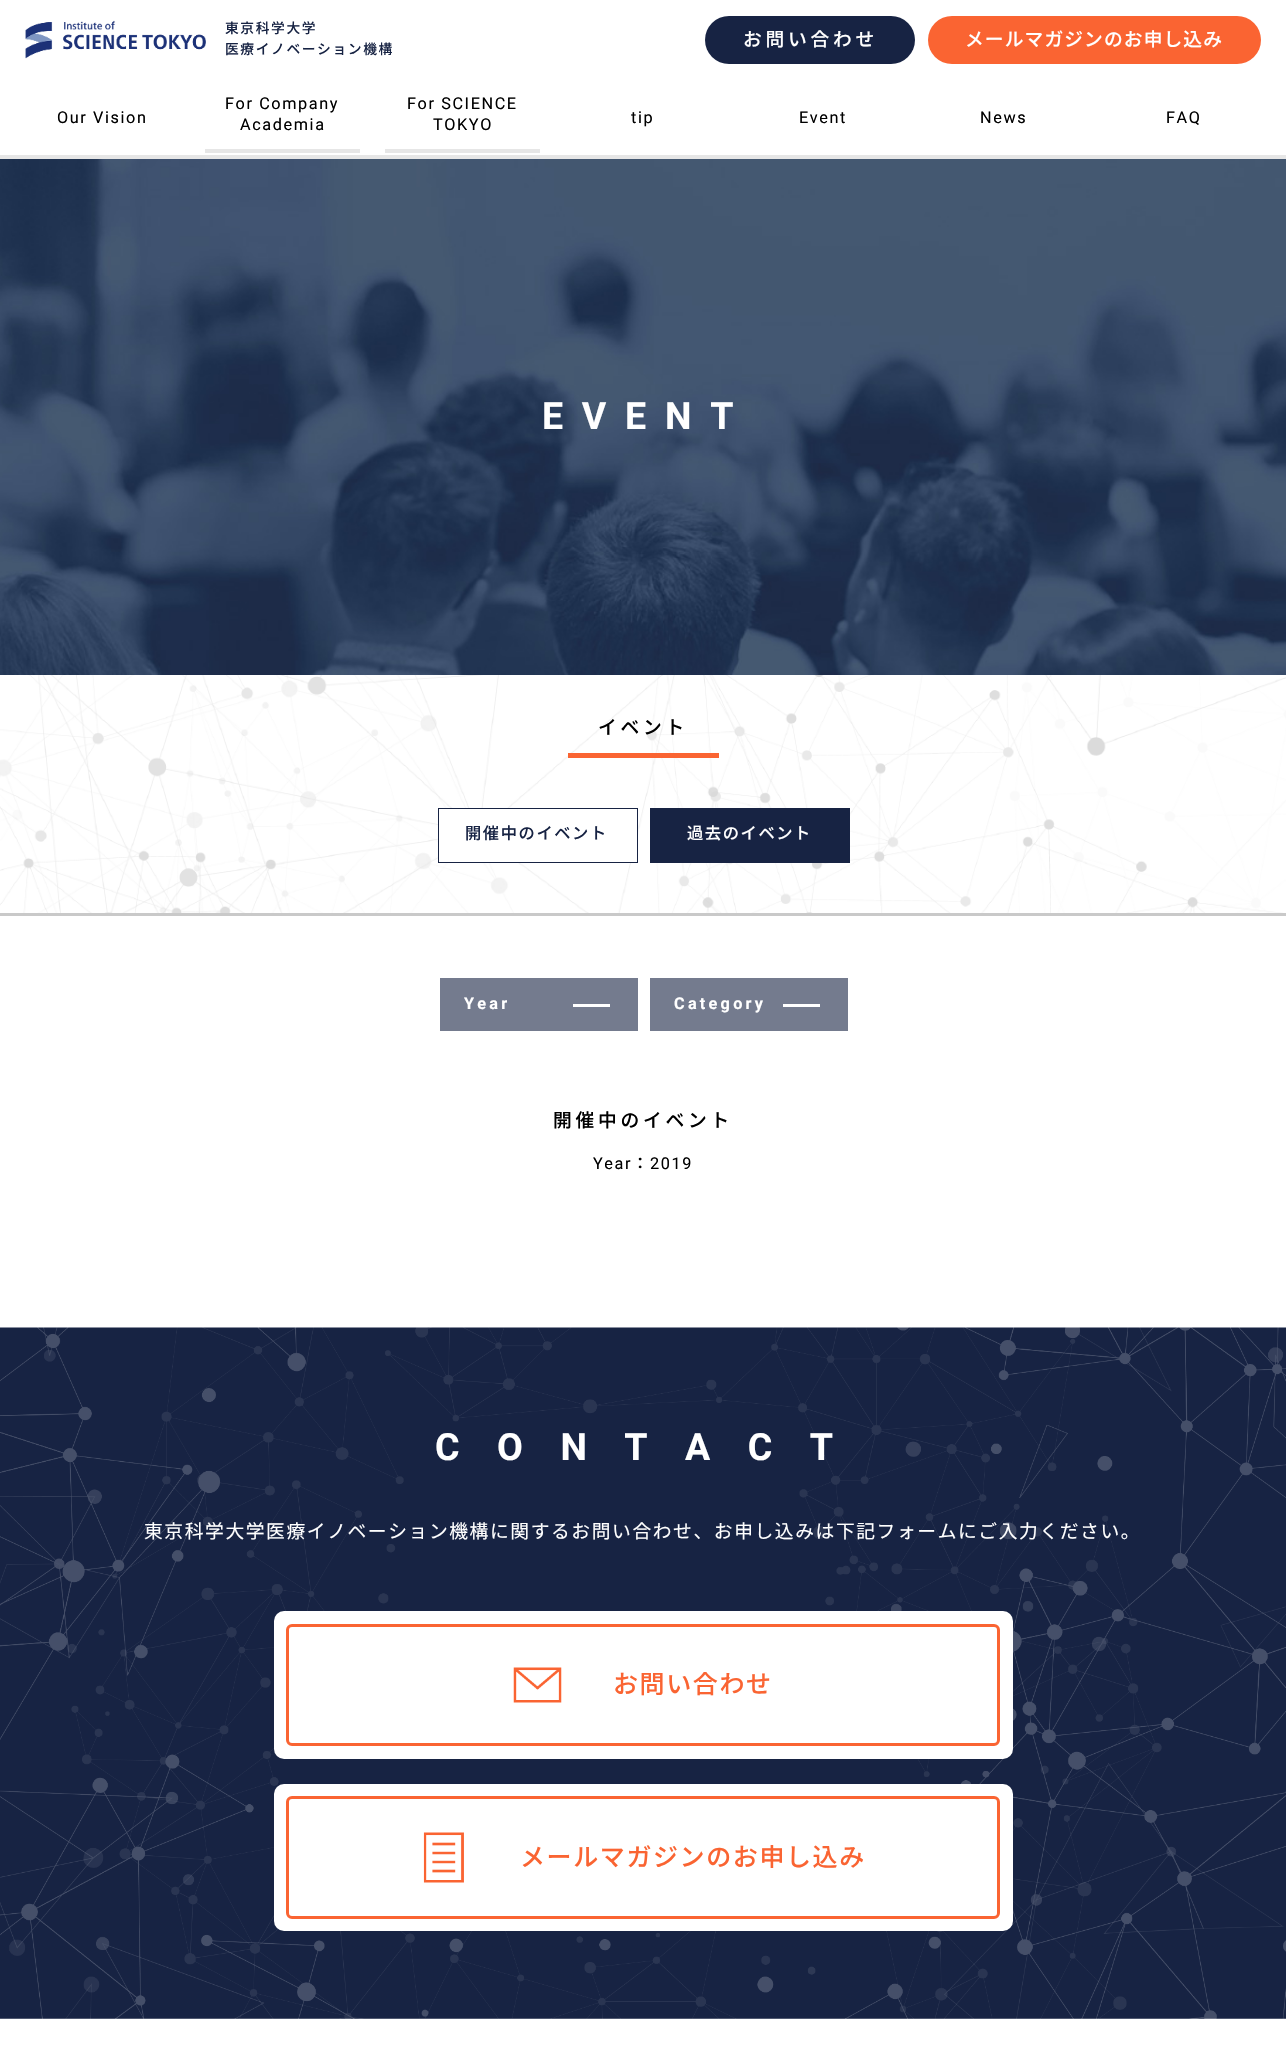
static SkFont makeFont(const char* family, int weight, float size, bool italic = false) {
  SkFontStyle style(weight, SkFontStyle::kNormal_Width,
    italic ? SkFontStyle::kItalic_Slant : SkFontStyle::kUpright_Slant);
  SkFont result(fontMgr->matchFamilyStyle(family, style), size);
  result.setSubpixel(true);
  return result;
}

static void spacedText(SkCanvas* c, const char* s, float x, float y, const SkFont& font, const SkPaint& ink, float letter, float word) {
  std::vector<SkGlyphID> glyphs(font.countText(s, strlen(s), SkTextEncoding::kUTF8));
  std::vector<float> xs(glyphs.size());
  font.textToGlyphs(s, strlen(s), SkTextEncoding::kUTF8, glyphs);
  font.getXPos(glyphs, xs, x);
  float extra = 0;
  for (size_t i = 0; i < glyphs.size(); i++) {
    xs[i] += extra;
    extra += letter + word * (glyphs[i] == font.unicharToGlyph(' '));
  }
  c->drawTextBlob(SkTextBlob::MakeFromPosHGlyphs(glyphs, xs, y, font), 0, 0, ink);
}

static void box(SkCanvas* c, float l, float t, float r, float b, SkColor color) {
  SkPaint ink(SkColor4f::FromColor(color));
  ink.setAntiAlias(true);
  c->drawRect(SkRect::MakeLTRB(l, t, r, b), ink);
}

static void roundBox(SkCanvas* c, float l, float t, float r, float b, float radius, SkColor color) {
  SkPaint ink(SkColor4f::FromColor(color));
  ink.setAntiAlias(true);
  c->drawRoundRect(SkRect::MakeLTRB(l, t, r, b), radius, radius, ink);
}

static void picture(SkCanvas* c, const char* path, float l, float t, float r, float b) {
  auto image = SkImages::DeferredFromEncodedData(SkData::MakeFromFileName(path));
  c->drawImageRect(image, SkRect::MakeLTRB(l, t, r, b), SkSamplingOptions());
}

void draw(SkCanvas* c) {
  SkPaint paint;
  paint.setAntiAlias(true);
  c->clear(0xffffffff);
  box(c, 0, 155, 1286, 159, 0xffe6e6e6);
  picture(c, "img_01.png", 25, 20, 206, 59);
  SkFont face1 = makeFont("Noto Sans JP", 500, 13.75f);
  paint.setColor(0xff172343);
  spacedText(c, "東京科学大学", 225, 33, face1, paint, 1.6f, 0);
  spacedText(c, "医療イノベーション機構", 225, 54, face1, paint, 1.6f, 0);
  roundBox(c, 705, 16, 915, 64, 24, 0xff172343);
  SkFont face2 = makeFont("Noto Sans JP", 500, 18.75f);
  paint.setColor(0xffffffff);
  spacedText(c, "お問い合わせ", 743, 46, face2, paint, 3.75f, 0);
  roundBox(c, 928, 16, 1261, 64, 24, 0xfffa6432);
  spacedText(c, "メールマガジンのお申し込み", 965, 46, face2, paint, 1.1f, 0);
  SkFont face3 = makeFont("Roboto", 400, 16.25f);
  paint.setColor(0xff000000);
  spacedText(c, "Our Vision", 57, 123, face3, paint, 1.6f, 0);
  box(c, 205, 149, 360, 153, 0xffe6e6e6);
  spacedText(c, "For Company", 225, 109, face3, paint, 1.6f, 0);
  spacedText(c, "Academia", 240, 130, face3, paint, 1.6f, 0);
  box(c, 385, 149, 540, 153, 0xffe6e6e6);
  spacedText(c, "For SCIENCE", 407, 109, face3, paint, 1.6f, 0);
  spacedText(c, "TOKYO", 433, 130, face3, paint, 1.6f, 0);
  spacedText(c, "tip", 631, 123, face3, paint, 1.6f, 0);
  spacedText(c, "Event", 799, 123, face3, paint, 1.6f, 0);
  spacedText(c, "News", 980, 123, face3, paint, 1.6f, 0);
  spacedText(c, "FAQ", 1166, 123, face3, paint, 1.6f, 0);
  picture(c, "img_02.png", 0, 675, 1286, 913);
  picture(c, "img_03.png", 0, 159, 1286, 675);
  SkFont face4 = makeFont("Roboto", 700, 37.5f);
  paint.setColor(0xffffffff);
  spacedText(c, "EVENT", 542, 429, face4, paint, 18.75f, 0);
  box(c, 568, 753, 719, 758, 0xfffa6432);
  paint.setColor(0xff000000);
  spacedText(c, "イベント", 598, 734, face2, paint, 3.75f, 0);
  paint.setColor(0xffffffff);
  c->drawRect(SkRect::MakeLTRB(438.5f, 808.5f, 637.5f, 862.5f), paint);
  paint.setStyle(SkPaint::kStroke_Style);
  paint.setStrokeWidth(1);
  paint.setColor(0xff172343);
  c->drawRect(SkRect::MakeLTRB(438.5f, 808.5f, 637.5f, 862.5f), paint);
  SkFont face5 = makeFont("Noto Sans JP", 500, 16.25f);
  paint.setStyle(SkPaint::kFill_Style);
  spacedText(c, "開催中のイベント", 465, 839, face5, paint, 1.6f, 0);
  box(c, 650, 808, 850, 863, 0xff172343);
  paint.setColor(0xffffffff);
  spacedText(c, "過去のイベント", 687, 839, face5, paint, 1.6f, 0);
  box(c, 0, 913, 1286, 916, 0xffc9c9c9);
  box(c, 440, 978, 638, 1031, 0xff747b8e);
  SkFont face6 = makeFont("Roboto", 700, 16.25f);
  spacedText(c, "Year", 464, 1009, face6, paint, 3.25f, 0);
  box(c, 573, 1004, 610, 1007, 0xffffffff);
  box(c, 650, 978, 848, 1031, 0xff747b8e);
  spacedText(c, "Category", 674, 1009, face6, paint, 3.25f, 0);
  box(c, 783, 1004, 820, 1007, 0xffffffff);
  paint.setColor(0xff000000);
  spacedText(c, "開催中のイベント", 553, 1127, face2, paint, 3.75f, 0);
  spacedText(c, "Year", 593, 1169, face3, paint, 1.6f, 0);
  spacedText(c, "：", 632, 1169, face5, paint, 1.6f, 0);
  spacedText(c, "2019", 650, 1169, face3, paint, 1.6f, 0);
  picture(c, "img_04.png", 0, 1327, 1286, 2019);
  paint.setColor(0xffffffff);
  spacedText(c, "CONTACT", 435, 1460, face4, paint, 37.5f, 0);
  SkFont face7 = makeFont("Noto Sans JP", 400, 18.75f);
  spacedText(c, "東京科学大学医療イノベーション機構に関するお問い合わせ、お申し込みは下記フォームにご入力ください。", 144, 1538, face7, paint, 1.6f, 0);
  roundBox(c, 274, 1611, 1013, 1759, 10, 0xffffffff);
  paint.setStyle(SkPaint::kStroke_Style);
  paint.setStrokeWidth(3);
  paint.setColor(0xfffa6432);
  c->drawRoundRect(SkRect::MakeLTRB(287.5f, 1625.5f, 998.5f, 1744.5f), 4.5f, 4.5f, paint);
  picture(c, "img_05.png", 513, 1667, 562, 1703);
  SkFont face8 = makeFont("Noto Sans JP", 500, 25);
  paint.setStyle(SkPaint::kFill_Style);
  spacedText(c, "お問い合わせ", 613, 1693, face8, paint, 1.6f, 0);
  roundBox(c, 274, 1784, 1013, 1931, 10, 0xffffffff);
  paint.setStyle(SkPaint::kStroke_Style);
  c->drawRoundRect(SkRect::MakeLTRB(287.5f, 1797.5f, 998.5f, 1917.5f), 4.5f, 4.5f, paint);
  picture(c, "img_06.png", 423, 1832, 464, 1883);
  paint.setStyle(SkPaint::kFill_Style);
  spacedText(c, "メールマガジンのお申し込み", 520, 1866, face8, paint, 1.6f, 0);
}
